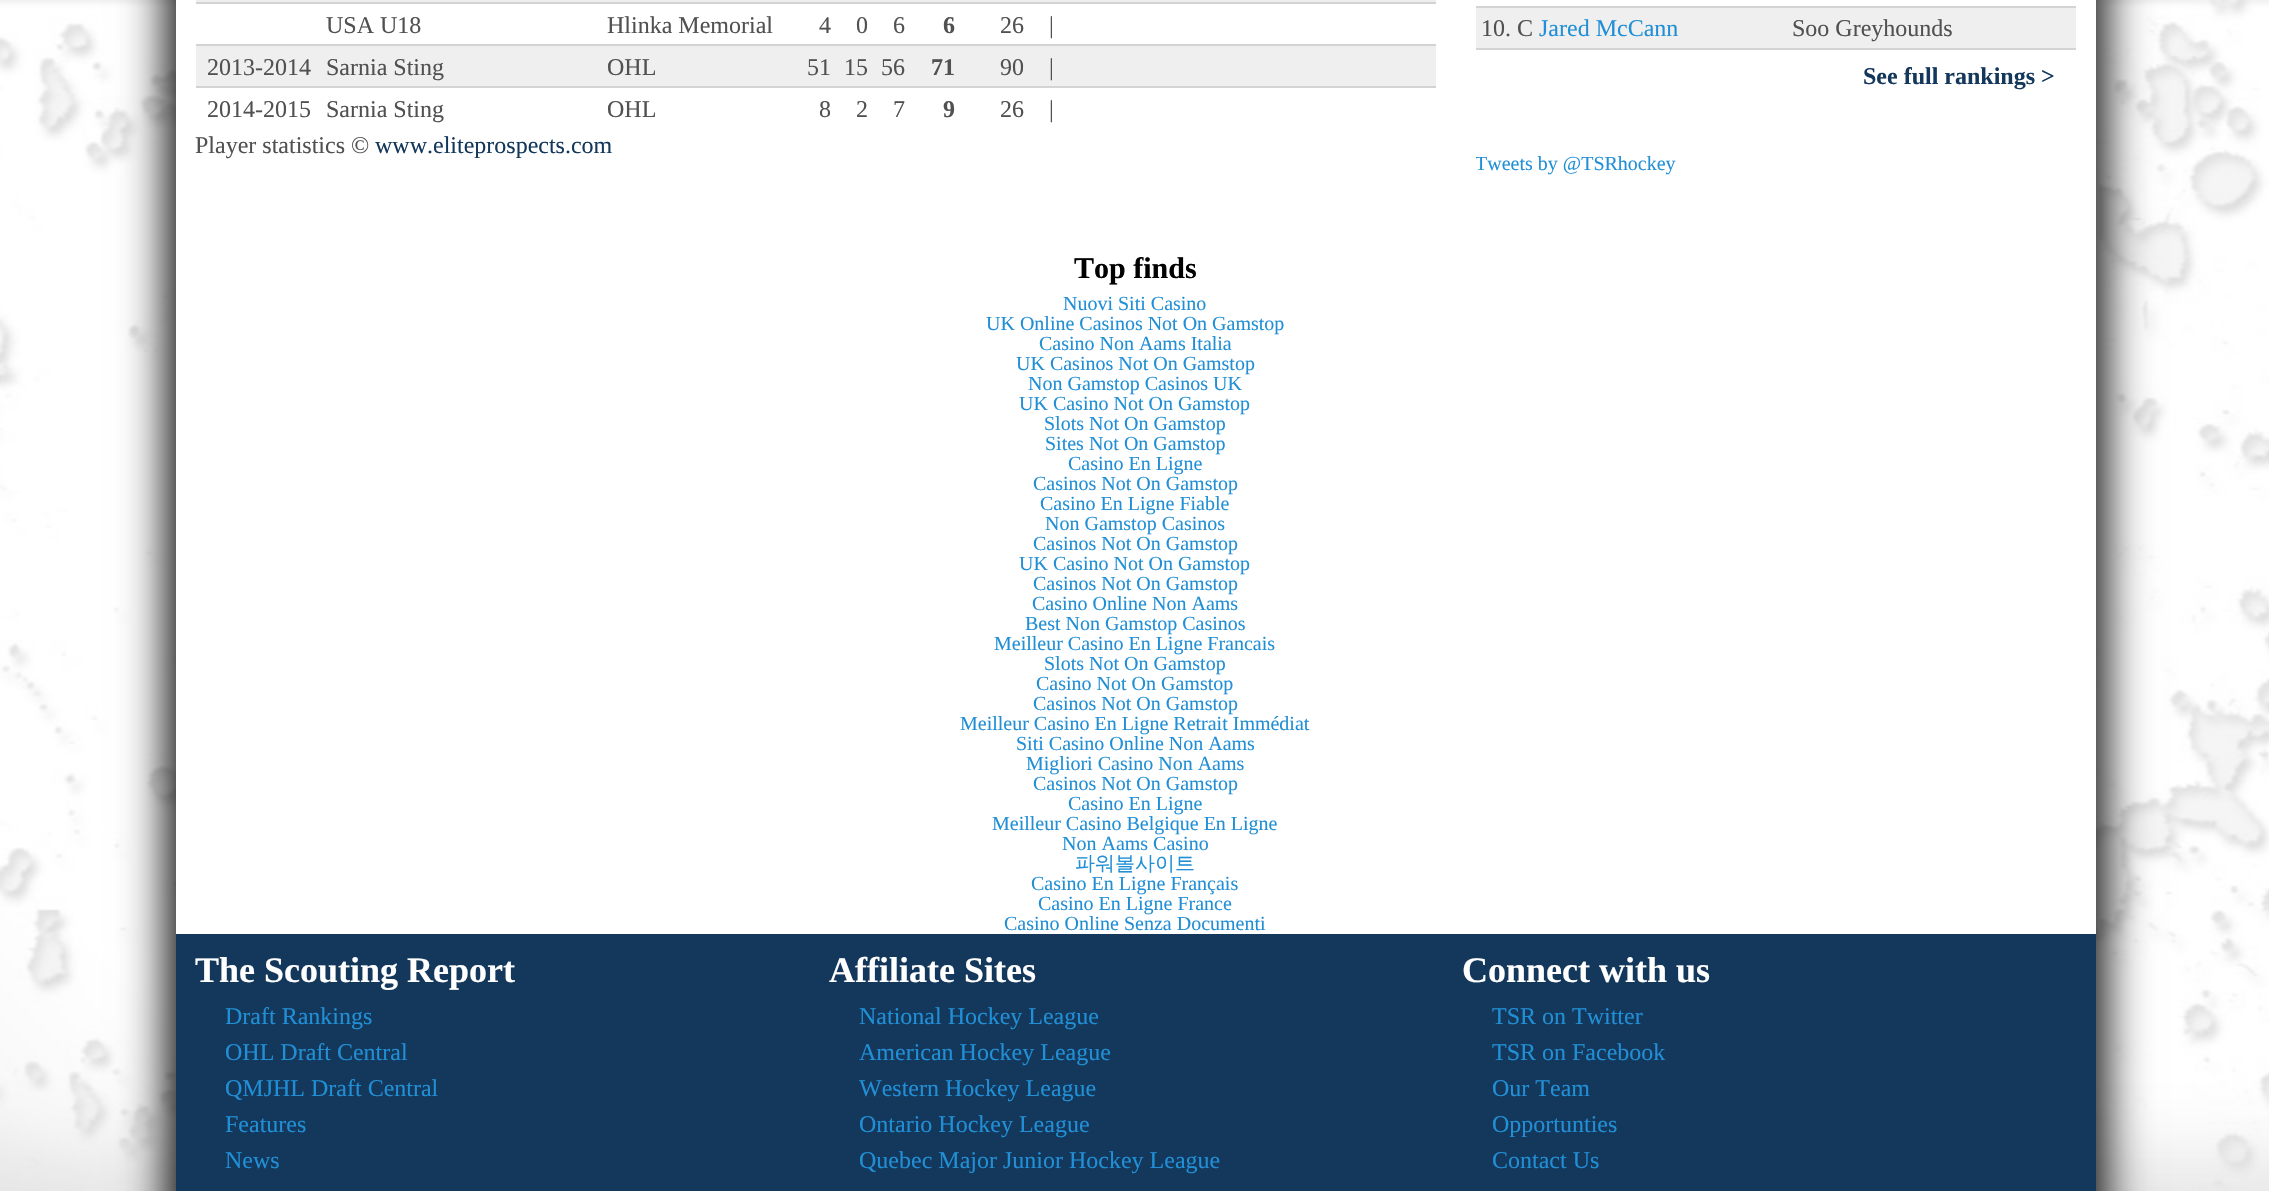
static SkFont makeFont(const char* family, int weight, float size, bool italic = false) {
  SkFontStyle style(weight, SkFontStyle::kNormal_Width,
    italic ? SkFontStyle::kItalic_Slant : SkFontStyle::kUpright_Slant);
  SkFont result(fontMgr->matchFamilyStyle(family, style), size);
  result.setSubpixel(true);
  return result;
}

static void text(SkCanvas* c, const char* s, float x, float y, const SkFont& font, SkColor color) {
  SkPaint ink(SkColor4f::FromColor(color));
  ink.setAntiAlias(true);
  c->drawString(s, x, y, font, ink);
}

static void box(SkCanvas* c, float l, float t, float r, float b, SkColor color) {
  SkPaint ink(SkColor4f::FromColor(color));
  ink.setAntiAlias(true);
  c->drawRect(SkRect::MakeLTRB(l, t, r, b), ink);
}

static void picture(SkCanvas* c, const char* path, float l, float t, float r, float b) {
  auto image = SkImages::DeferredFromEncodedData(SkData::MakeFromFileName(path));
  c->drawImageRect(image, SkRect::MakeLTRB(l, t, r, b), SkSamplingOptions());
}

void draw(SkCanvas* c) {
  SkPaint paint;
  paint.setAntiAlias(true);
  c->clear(0xffffffff);
  picture(c, "img_01.png", 0, 0, 2269, 1191);
  paint.setColor(0xff000000);
  paint.setMaskFilter(SkMaskFilter::MakeBlur(kNormal_SkBlurStyle, 22));
  c->drawRect(SkRect::MakeLTRB(168, -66, 2104, 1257), paint);
  paint.setMaskFilter(nullptr);
  box(c, 176, 0, 2096, 934, 0xffffffff);
  box(c, 196, 0, 1436, 2, 0xffefefef);
  box(c, 196, 2, 1436, 4, 0xffd3d3d3);
  SkFont face1 = makeFont("Liberation Serif", 400, 24);
  text(c, "USA U18", 326, 33, face1, 0xff515151);
  text(c, "Hlinka Memorial", 607, 33, face1, 0xff515151);
  text(c, "4", 819, 33, face1, 0xff515151);
  text(c, "0", 856, 33, face1, 0xff515151);
  text(c, "6", 893, 33, face1, 0xff515151);
  SkFont face2 = makeFont("Liberation Serif", 700, 24);
  text(c, "6", 943, 33, face2, 0xff515151);
  text(c, "26", 1000, 33, face1, 0xff515151);
  text(c, "|", 1049, 33, face1, 0xff515151);
  box(c, 196, 46, 1436, 86, 0xffefefef);
  box(c, 196, 44, 1436, 46, 0xffd3d3d3);
  box(c, 196, 86, 1436, 88, 0xffd3d3d3);
  text(c, "2013-2014", 207, 75, face1, 0xff515151);
  text(c, "Sarnia Sting", 326, 75, face1, 0xff515151);
  text(c, "OHL", 607, 75, face1, 0xff515151);
  text(c, "51", 807, 75, face1, 0xff515151);
  text(c, "15", 844, 75, face1, 0xff515151);
  text(c, "56", 881, 75, face1, 0xff515151);
  text(c, "71", 931, 75, face2, 0xff515151);
  text(c, "90", 1000, 75, face1, 0xff515151);
  text(c, "|", 1049, 75, face1, 0xff515151);
  text(c, "2014-2015", 207, 117, face1, 0xff515151);
  text(c, "Sarnia Sting", 326, 117, face1, 0xff515151);
  text(c, "OHL", 607, 117, face1, 0xff515151);
  text(c, "8", 819, 117, face1, 0xff515151);
  text(c, "2", 856, 117, face1, 0xff515151);
  text(c, "7", 893, 117, face1, 0xff515151);
  text(c, "9", 943, 117, face2, 0xff515151);
  text(c, "26", 1000, 117, face1, 0xff515151);
  text(c, "|", 1049, 117, face1, 0xff515151);
  text(c, "Player statistics ©", 195, 153, face1, 0xff515151);
  text(c, "www.eliteprospects.com", 375, 153, face1, 0xff14385c);
  box(c, 1476, 8, 2076, 48, 0xffefefef);
  box(c, 1476, 6, 2076, 8, 0xffd3d3d3);
  box(c, 1476, 48, 2076, 50, 0xffd3d3d3);
  text(c, "10. C", 1481, 36, face1, 0xff515151);
  text(c, "Jared McCann", 1539, 36, face1, 0xff218fd6);
  text(c, "Soo Greyhounds", 1792, 36, face1, 0xff515151);
  text(c, "See full rankings >", 1863, 84, face2, 0xff14385c);
  c->save();
  c->clipRect(SkRect::MakeLTRB(1476, 0, 2076, 214));
  SkFont face3 = makeFont("Liberation Serif", 400, 20);
  text(c, "Tweets by @TSRhockey", 1475, 170, face3, 0xff218fd6);
  c->restore();
  SkFont face4 = makeFont("Liberation Serif", 700, 30);
  text(c, "Top finds", 1074, 278, face4, 0xff000000);
  text(c, "Nuovi Siti Casino", 1063, 310, face3, 0xff218fd6);
  text(c, "UK Online Casinos Not On Gamstop", 986, 330, face3, 0xff218fd6);
  text(c, "Casino Non Aams Italia", 1039, 350, face3, 0xff218fd6);
  text(c, "UK Casinos Not On Gamstop", 1016, 370, face3, 0xff218fd6);
  text(c, "Non Gamstop Casinos UK", 1028, 390, face3, 0xff218fd6);
  text(c, "UK Casino Not On Gamstop", 1019, 410, face3, 0xff218fd6);
  text(c, "Slots Not On Gamstop", 1044, 430, face3, 0xff218fd6);
  text(c, "Sites Not On Gamstop", 1045, 450, face3, 0xff218fd6);
  text(c, "Casino En Ligne", 1068, 470, face3, 0xff218fd6);
  text(c, "Casinos Not On Gamstop", 1033, 490, face3, 0xff218fd6);
  text(c, "Casino En Ligne Fiable", 1040, 510, face3, 0xff218fd6);
  text(c, "Non Gamstop Casinos", 1045, 530, face3, 0xff218fd6);
  text(c, "Casinos Not On Gamstop", 1033, 550, face3, 0xff218fd6);
  text(c, "UK Casino Not On Gamstop", 1019, 570, face3, 0xff218fd6);
  text(c, "Casinos Not On Gamstop", 1033, 590, face3, 0xff218fd6);
  text(c, "Casino Online Non Aams", 1032, 610, face3, 0xff218fd6);
  text(c, "Best Non Gamstop Casinos", 1025, 630, face3, 0xff218fd6);
  text(c, "Meilleur Casino En Ligne Francais", 994, 650, face3, 0xff218fd6);
  text(c, "Slots Not On Gamstop", 1044, 670, face3, 0xff218fd6);
  text(c, "Casino Not On Gamstop", 1036, 690, face3, 0xff218fd6);
  text(c, "Casinos Not On Gamstop", 1033, 710, face3, 0xff218fd6);
  text(c, "Meilleur Casino En Ligne Retrait Immédiat", 960, 730, face3, 0xff218fd6);
  text(c, "Siti Casino Online Non Aams", 1016, 750, face3, 0xff218fd6);
  text(c, "Migliori Casino Non Aams", 1026, 770, face3, 0xff218fd6);
  text(c, "Casinos Not On Gamstop", 1033, 790, face3, 0xff218fd6);
  text(c, "Casino En Ligne", 1068, 810, face3, 0xff218fd6);
  text(c, "Meilleur Casino Belgique En Ligne", 992, 830, face3, 0xff218fd6);
  text(c, "Non Aams Casino", 1062, 850, face3, 0xff218fd6);
  SkFont face5 = makeFont("WenQuanYi Zen Hei", 500, 20);
  text(c, "파워볼사이트", 1075, 870, face5, 0xff218fd6);
  text(c, "Casino En Ligne Français", 1031, 890, face3, 0xff218fd6);
  text(c, "Casino En Ligne France", 1038, 910, face3, 0xff218fd6);
  text(c, "Casino Online Senza Documenti", 1004, 930, face3, 0xff218fd6);
  box(c, 176, 934, 2096, 1191, 0xff14385c);
  SkFont face6 = makeFont("Liberation Serif", 700, 36);
  text(c, "The Scouting Report", 195, 982, face6, 0xffffffff);
  text(c, "Draft Rankings", 225, 1024, face1, 0xff218fd6);
  text(c, "OHL Draft Central", 225, 1060, face1, 0xff218fd6);
  text(c, "QMJHL Draft Central", 225, 1096, face1, 0xff218fd6);
  text(c, "Features", 225, 1132, face1, 0xff218fd6);
  text(c, "News", 225, 1168, face1, 0xff218fd6);
  text(c, "Affiliate Sites", 829, 982, face6, 0xffffffff);
  text(c, "National Hockey League", 859, 1024, face1, 0xff218fd6);
  text(c, "American Hockey League", 859, 1060, face1, 0xff218fd6);
  text(c, "Western Hockey League", 859, 1096, face1, 0xff218fd6);
  text(c, "Ontario Hockey League", 859, 1132, face1, 0xff218fd6);
  text(c, "Quebec Major Junior Hockey League", 859, 1168, face1, 0xff218fd6);
  text(c, "Connect with us", 1462, 982, face6, 0xffffffff);
  text(c, "TSR on Twitter", 1492, 1024, face1, 0xff218fd6);
  text(c, "TSR on Facebook", 1492, 1060, face1, 0xff218fd6);
  text(c, "Our Team", 1492, 1096, face1, 0xff218fd6);
  text(c, "Opportunties", 1492, 1132, face1, 0xff218fd6);
  text(c, "Contact Us", 1492, 1168, face1, 0xff218fd6);
}
